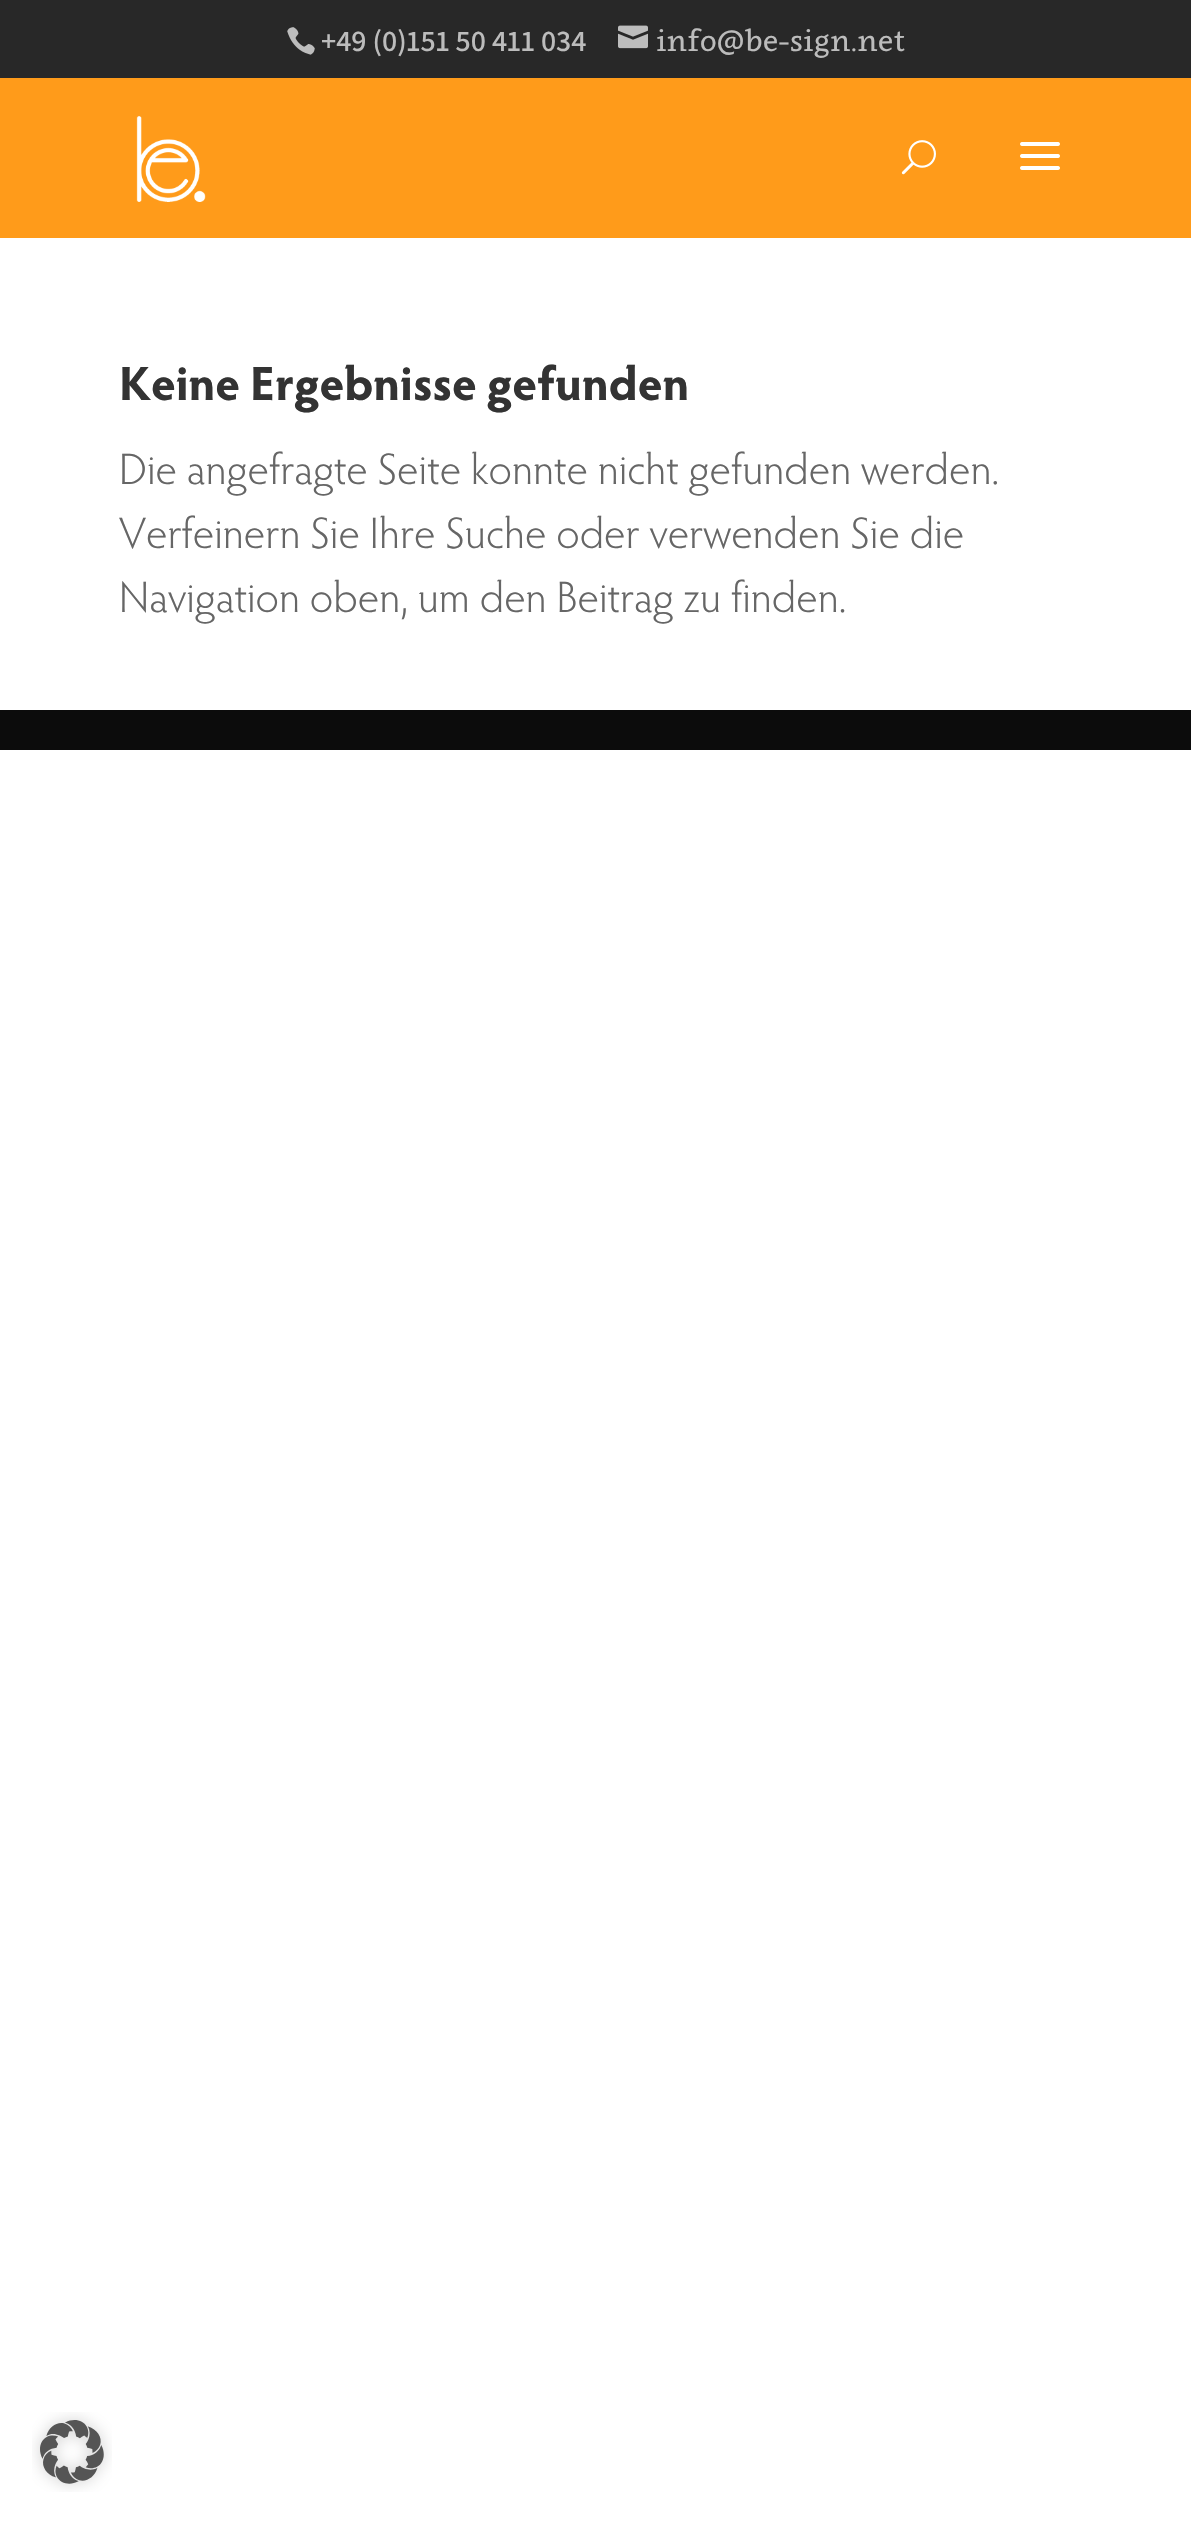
static SkFont makeFont(const char* family, int weight, float size, bool italic = false) {
  SkFontStyle style(weight, SkFontStyle::kNormal_Width,
    italic ? SkFontStyle::kItalic_Slant : SkFontStyle::kUpright_Slant);
  SkFont result(fontMgr->matchFamilyStyle(family, style), size);
  result.setSubpixel(true);
  return result;
}

static void text(SkCanvas* c, const char* s, float x, float y, const SkFont& font, SkColor color) {
  SkPaint ink(SkColor4f::FromColor(color));
  ink.setAntiAlias(true);
  c->drawString(s, x, y, font, ink);
}

static void box(SkCanvas* c, float l, float t, float r, float b, SkColor color) {
  SkPaint ink(SkColor4f::FromColor(color));
  ink.setAntiAlias(true);
  c->drawRect(SkRect::MakeLTRB(l, t, r, b), ink);
}

static void picture(SkCanvas* c, const char* path, float l, float t, float r, float b) {
  auto image = SkImages::DeferredFromEncodedData(SkData::MakeFromFileName(path));
  c->drawImageRect(image, SkRect::MakeLTRB(l, t, r, b), SkSamplingOptions());
}

void draw(SkCanvas* c) {
  SkPaint paint;
  paint.setAntiAlias(true);
  c->clear(0xffffffff);
  box(c, 0, 0, 1191, 78, 0xff282828);
  picture(c, "img_01.png", 287, 27, 315, 55);
  SkFont face1 = makeFont("Assistant", 600, 30);
  text(c, "+49 (0)151 50 411 034", 321, 51, face1, 0xffbcbcbc);
  picture(c, "img_02.png", 618, 25, 648, 49);
  SkFont face2 = makeFont("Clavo", 400, 30);
  text(c, "info@be-sign.net", 656, 51, face2, 0xffbcbcbc);
  box(c, 0, 78, 1191, 238, 0xffff9b1a);
  picture(c, "img_03.png", 136, 116, 206, 202);
  picture(c, "img_04.png", 901, 140, 936, 175);
  picture(c, "img_05.png", 1020, 142, 1060, 170);
  SkFont face3 = makeFont("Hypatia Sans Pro", 700, 48);
  text(c, "Keine Ergebnisse gefunden", 119, 400, face3, 0xff333333);
  SkFont face4 = makeFont("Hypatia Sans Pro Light", 300, 44);
  text(c, "Die angefragte Seite konnte nicht gefunden werden.", 119, 484, face4, 0xff666666);
  text(c, "Verfeinern Sie Ihre Suche oder verwenden Sie die", 119, 548, face4, 0xff666666);
  text(c, "Navigation oben, um den Beitrag zu finden.", 119, 612, face4, 0xff666666);
  box(c, 0, 710, 1191, 750, 0xff0c0c0c);
  picture(c, "img_06.png", 32, 2412, 112, 2492);
}
